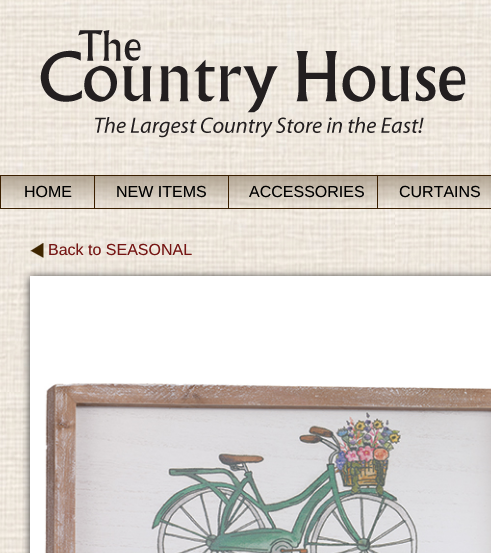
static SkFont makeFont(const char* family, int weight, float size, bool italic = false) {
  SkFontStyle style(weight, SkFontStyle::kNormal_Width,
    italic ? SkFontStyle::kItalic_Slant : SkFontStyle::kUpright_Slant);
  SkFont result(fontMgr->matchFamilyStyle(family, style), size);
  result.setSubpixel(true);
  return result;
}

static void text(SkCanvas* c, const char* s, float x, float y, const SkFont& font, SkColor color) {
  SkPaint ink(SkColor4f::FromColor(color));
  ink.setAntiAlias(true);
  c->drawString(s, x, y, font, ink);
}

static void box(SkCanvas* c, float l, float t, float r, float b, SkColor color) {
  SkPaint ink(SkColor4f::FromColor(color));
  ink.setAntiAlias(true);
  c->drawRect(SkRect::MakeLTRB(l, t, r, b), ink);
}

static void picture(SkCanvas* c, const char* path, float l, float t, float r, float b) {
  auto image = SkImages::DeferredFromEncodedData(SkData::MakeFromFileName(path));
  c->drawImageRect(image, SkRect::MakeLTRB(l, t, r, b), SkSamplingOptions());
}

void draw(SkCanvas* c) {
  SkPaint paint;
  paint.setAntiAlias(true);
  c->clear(0xffffffff);
  picture(c, "img_01.png", 0, 0, 491, 553);
  picture(c, "img_02.png", 40, 30, 466, 138);
  box(c, 0, 175, 491, 176, 0xff3a1f00);
  box(c, 0, 208, 491, 209, 0xff3a1f00);
  box(c, 0, 175, 1, 209, 0xff3a1f00);
  SkFont face1 = makeFont("Liberation Sans", 400, 16);
  text(c, "HOME", 24, 197, face1, 0xff000000);
  box(c, 94, 175, 95, 209, 0xff3a1f00);
  text(c, "NEW ITEMS", 116, 197, face1, 0xff000000);
  box(c, 228, 175, 229, 209, 0xff3a1f00);
  text(c, "ACCESSORIES", 249, 197, face1, 0xff000000);
  box(c, 377, 175, 378, 209, 0xff3a1f00);
  text(c, "CURTAINS", 399, 197, face1, 0xff000000);
  picture(c, "img_03.png", 30, 243, 44, 258);
  text(c, "Back to SEASONAL", 48, 255, face1, 0xff761614);
  paint.setColor(0xff333333);
  paint.setMaskFilter(SkMaskFilter::MakeBlur(kNormal_SkBlurStyle, 4));
  c->drawRect(SkRect::MakeLTRB(30, 277, 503, 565), paint);
  paint.setMaskFilter(nullptr);
  paint.setStyle(SkPaint::kStroke_Style);
  paint.setStrokeWidth(10);
  paint.setColor(0xffffffff);
  c->drawRect(SkRect::MakeLTRB(35, 281, 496, 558), paint);
  box(c, 40, 286, 491, 553, 0xffffffff);
  picture(c, "img_04.png", 44, 383, 491, 553);
}
